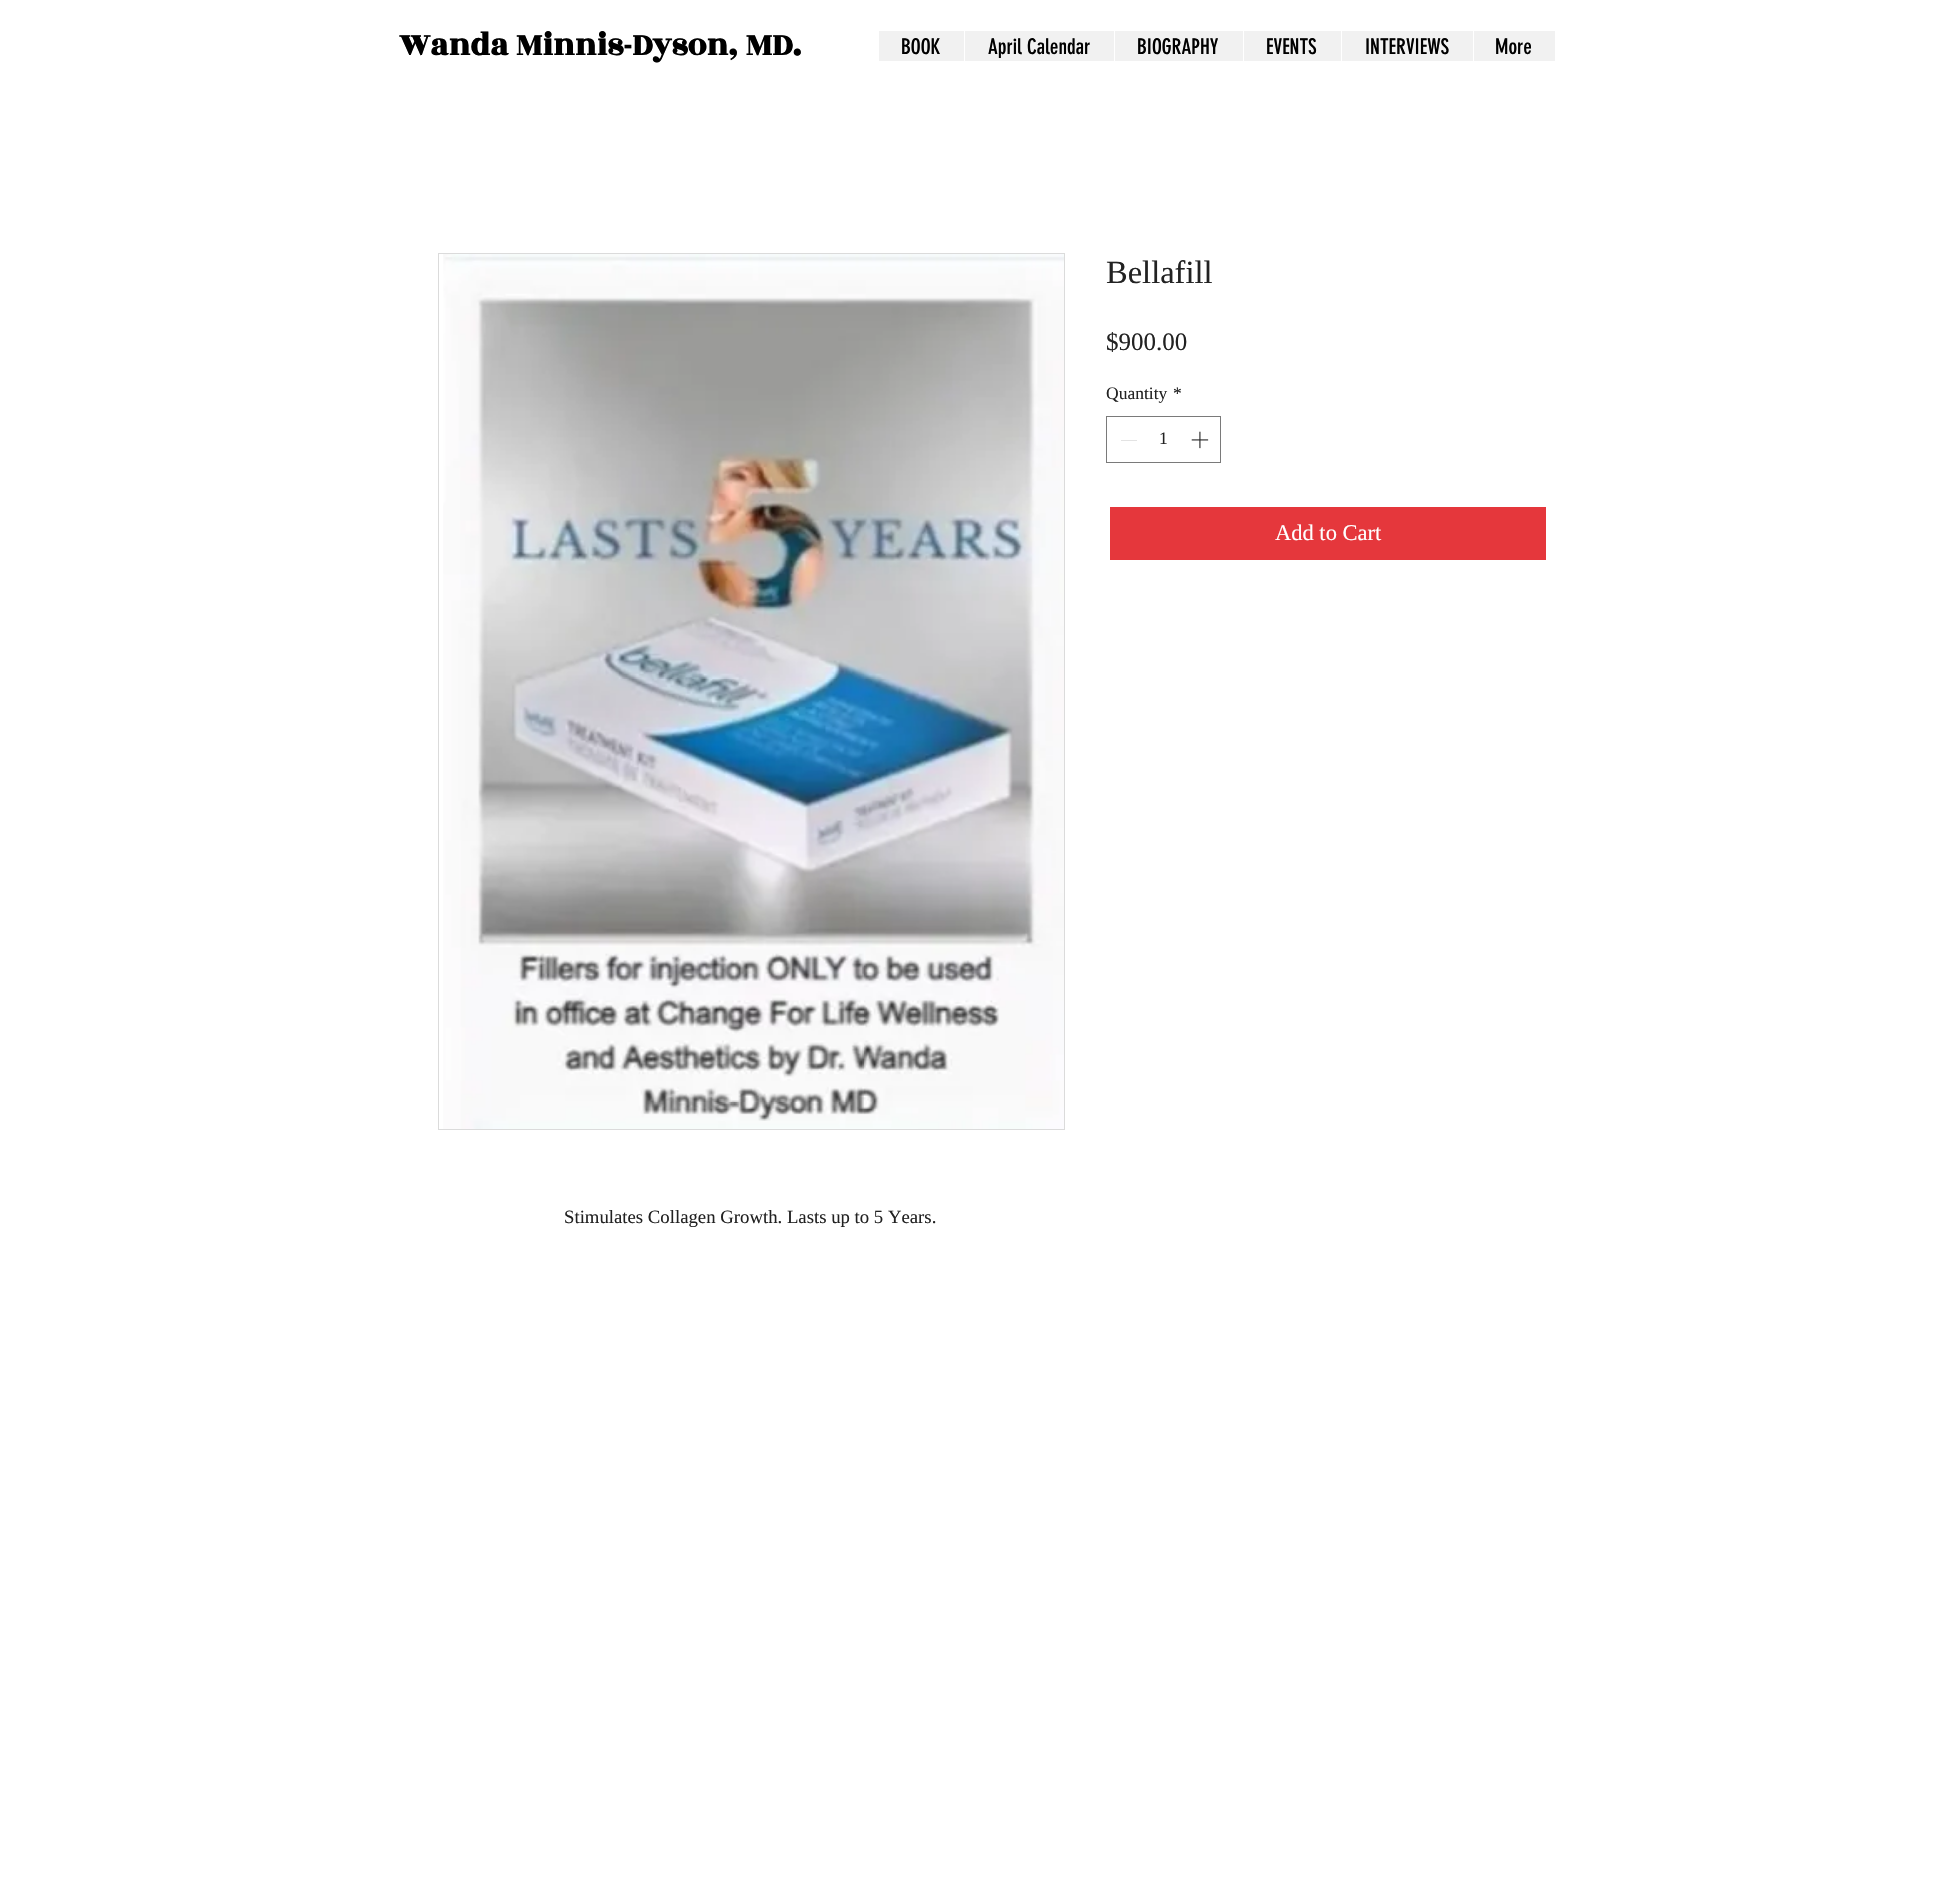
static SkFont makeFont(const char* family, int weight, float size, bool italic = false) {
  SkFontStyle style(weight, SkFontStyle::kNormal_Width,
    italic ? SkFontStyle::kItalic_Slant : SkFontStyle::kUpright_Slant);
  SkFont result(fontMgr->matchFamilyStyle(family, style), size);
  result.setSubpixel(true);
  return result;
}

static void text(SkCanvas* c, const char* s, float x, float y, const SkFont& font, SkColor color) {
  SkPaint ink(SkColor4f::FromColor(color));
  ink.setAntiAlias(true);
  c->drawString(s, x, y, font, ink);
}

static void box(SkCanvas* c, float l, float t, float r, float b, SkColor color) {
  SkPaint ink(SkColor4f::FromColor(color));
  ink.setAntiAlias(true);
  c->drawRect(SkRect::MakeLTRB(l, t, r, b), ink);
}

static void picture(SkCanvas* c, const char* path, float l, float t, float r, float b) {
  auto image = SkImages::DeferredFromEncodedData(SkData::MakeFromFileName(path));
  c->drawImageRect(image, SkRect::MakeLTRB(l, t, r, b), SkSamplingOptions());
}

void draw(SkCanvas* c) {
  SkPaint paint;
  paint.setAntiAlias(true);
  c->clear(0xffffffff);
  SkFont face1 = makeFont("Rozha One", 700, 33.75f);
  text(c, "Wanda Minnis-Dyson, MD.", 399, 55, face1, 0xff000000);
  box(c, 879, 31, 1555, 61, 0xfff1f1f1);
  SkFont face2 = makeFont("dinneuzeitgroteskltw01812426", 400, 21.25f);
  text(c, "BOOK", 901, 54, face2, 0xff000000);
  box(c, 964, 31, 965, 61, 0xffffffff);
  text(c, "April Calendar", 988, 54, face2, 0xff000000);
  box(c, 1114, 31, 1115, 61, 0xffffffff);
  text(c, "BIOGRAPHY", 1137, 54, face2, 0xff000000);
  box(c, 1243, 31, 1244, 61, 0xffffffff);
  text(c, "EVENTS", 1266, 54, face2, 0xff000000);
  box(c, 1341, 31, 1342, 61, 0xffffffff);
  text(c, "INTERVIEWS", 1365, 54, face2, 0xff000000);
  box(c, 1473, 31, 1474, 61, 0xffffffff);
  text(c, "More", 1495, 54, face2, 0xff000000);
  SkFont face3 = makeFont("Liberation Serif", 400, 32.5f);
  text(c, "Bellafill", 1106, 283, face3, 0xff222222);
  SkFont face4 = makeFont("Liberation Serif", 400, 25);
  text(c, "$900.00", 1106, 350, face4, 0xff222222);
  SkFont face5 = makeFont("Liberation Serif", 400, 17.5f);
  text(c, "Quantity", 1106, 399, face5, 0xff222222);
  text(c, "*", 1173, 399, face5, 0xff222222);
  paint.setStyle(SkPaint::kStroke_Style);
  paint.setStrokeWidth(1);
  paint.setColor(0xff7a7a7a);
  c->drawRect(SkRect::MakeLTRB(1106.5f, 416.5f, 1220.5f, 462.5f), paint);
  box(c, 1121, 440, 1137, 441, 0xffe3e3e3);
  text(c, "1", 1159, 444, face5, 0xff222222);
  picture(c, "img_01.png", 1191, 431, 1209, 449);
  box(c, 1110, 507, 1546, 560, 0xffe5373c);
  SkFont face6 = makeFont("Liberation Serif", 400, 22.5f);
  text(c, "Add to Cart", 1275, 540, face6, 0xffffffff);
  paint.setColor(0xffdbdbdb);
  c->drawRect(SkRect::MakeLTRB(438.5f, 253.5f, 1064.5f, 1129.5f), paint);
  picture(c, "img_02.png", 443, 254, 1064, 1129);
  SkFont face7 = makeFont("Liberation Serif", 400, 18.75f);
  text(c, "Stimulates Collagen Growth. Lasts up to 5 Years.", 564, 1223, face7, 0xff222222);
}
